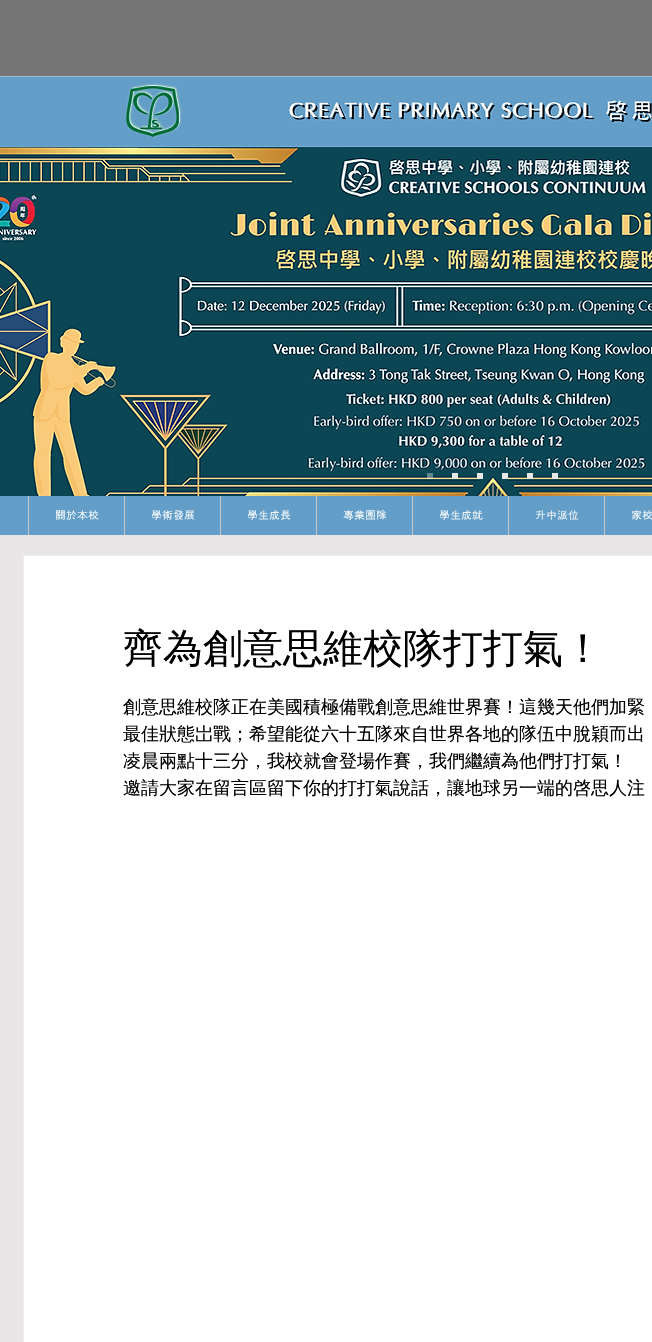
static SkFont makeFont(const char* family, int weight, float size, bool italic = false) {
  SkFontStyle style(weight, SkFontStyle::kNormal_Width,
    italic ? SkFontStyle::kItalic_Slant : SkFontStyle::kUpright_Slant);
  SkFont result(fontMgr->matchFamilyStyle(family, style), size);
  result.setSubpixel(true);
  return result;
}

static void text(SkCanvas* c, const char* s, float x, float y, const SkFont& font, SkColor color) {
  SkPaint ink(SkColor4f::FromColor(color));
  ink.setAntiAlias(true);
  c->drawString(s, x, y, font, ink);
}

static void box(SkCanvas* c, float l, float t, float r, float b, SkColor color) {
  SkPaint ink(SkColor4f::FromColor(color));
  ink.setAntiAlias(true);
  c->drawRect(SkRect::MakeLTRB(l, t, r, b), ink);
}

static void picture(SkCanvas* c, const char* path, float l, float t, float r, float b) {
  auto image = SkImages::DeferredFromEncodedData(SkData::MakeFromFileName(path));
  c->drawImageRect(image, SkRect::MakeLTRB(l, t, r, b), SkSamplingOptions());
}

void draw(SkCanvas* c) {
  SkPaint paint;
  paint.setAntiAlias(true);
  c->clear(0xffa2bece);
  box(c, 0, 0, 652, 76, 0xff757575);
  picture(c, "img_01.png", 0, 77, 652, 496);
  box(c, 427, 473, 433, 479, 0x5cffffff);
  box(c, 452, 473, 458, 479, 0xffe8e6e6);
  box(c, 477, 473, 483, 479, 0xffe8e6e6);
  box(c, 502, 473, 508, 479, 0xffe8e6e6);
  box(c, 527, 473, 533, 479, 0xffe8e6e6);
  box(c, 552, 473, 558, 479, 0xffe8e6e6);
  box(c, 0, 496, 652, 535, 0xff639ec8);
  box(c, 28, 496, 29, 535, 0xffc7c7c7);
  SkFont face1 = makeFont("Dotum", 400, 11);
  text(c, "關於本校", 55, 519, face1, 0xffffffff);
  box(c, 124, 496, 125, 535, 0xffc7c7c7);
  text(c, "學術發展", 151, 519, face1, 0xffffffff);
  box(c, 220, 496, 221, 535, 0xffc7c7c7);
  text(c, "學生成長", 247, 519, face1, 0xffffffff);
  box(c, 316, 496, 317, 535, 0xffc7c7c7);
  text(c, "專業團隊", 343, 519, face1, 0xffffffff);
  box(c, 412, 496, 413, 535, 0xffc7c7c7);
  text(c, "學生成就", 439, 519, face1, 0xffffffff);
  box(c, 508, 496, 509, 535, 0xffc7c7c7);
  text(c, "升中派位", 535, 519, face1, 0xffffffff);
  box(c, 604, 496, 605, 535, 0xffc7c7c7);
  text(c, "家校", 631, 519, face1, 0xffffffff);
  box(c, 0, 535, 652, 1342, 0xffe8e6e6);
  paint.setColor(0xffffffff);
  c->drawRect(SkRect::MakeLTRB(23.5f, 555.5f, 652.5f, 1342.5f), paint);
  paint.setStyle(SkPaint::kStroke_Style);
  paint.setStrokeWidth(1);
  paint.setColor(0xffeeecec);
  c->drawRect(SkRect::MakeLTRB(23.5f, 555.5f, 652.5f, 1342.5f), paint);
  SkFont face2 = makeFont("WenQuanYi Zen Hei", 500, 40);
  text(c, "齊為創意思維校隊打打氣！", 123, 662, face2, 0xff000000);
  SkFont face3 = makeFont("WenQuanYi Zen Hei", 500, 18);
  text(c, "創意思維校隊正在美國積極備戰創意思維世界賽！這幾天他們加緊", 123, 713, face3, 0xff000000);
  text(c, "最佳狀態岀戰；希望能從六十五隊來自世界各地的隊伍中脫穎而出", 123, 740, face3, 0xff000000);
  text(c, "凌晨兩點十三分，我校就會登場作賽，我們繼續為他們打打氣！", 123, 767, face3, 0xff000000);
  text(c, "邀請大家在留言區留下你的打打氣說話，讓地球另一端的啓思人注", 123, 794, face3, 0xff000000);
}
